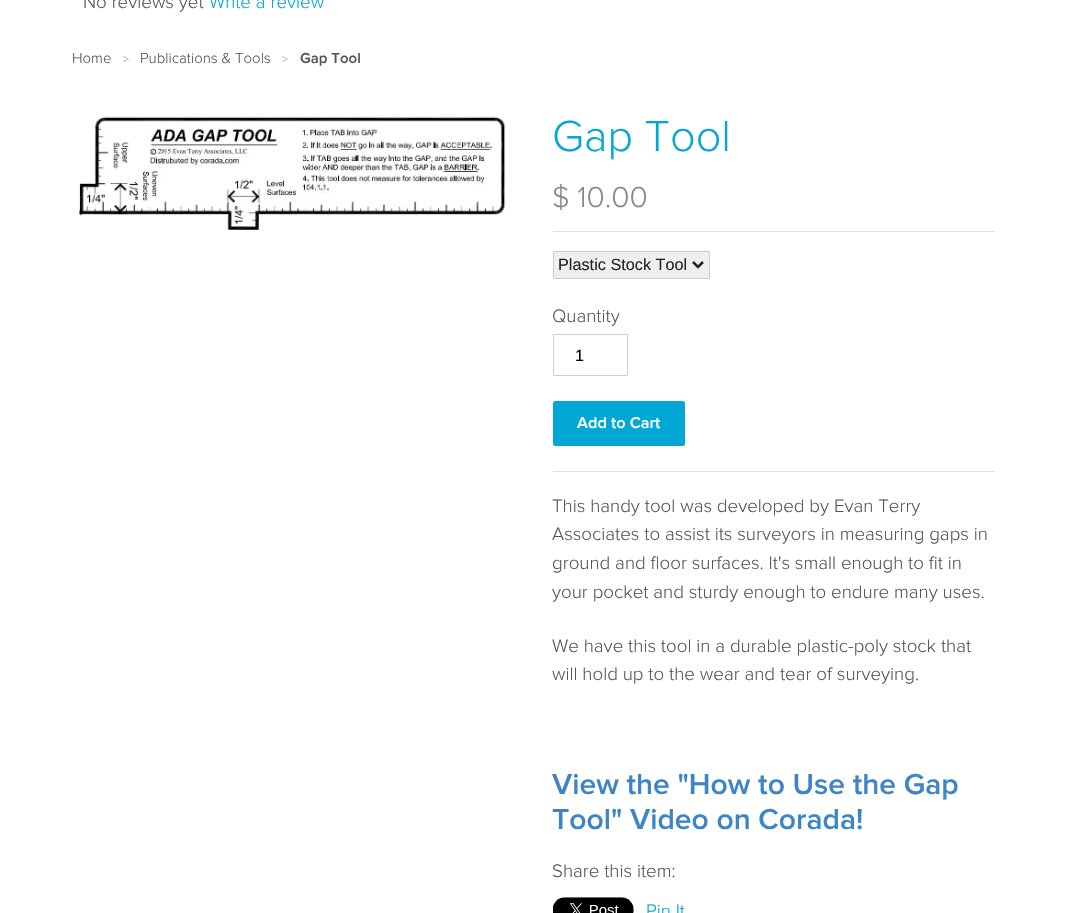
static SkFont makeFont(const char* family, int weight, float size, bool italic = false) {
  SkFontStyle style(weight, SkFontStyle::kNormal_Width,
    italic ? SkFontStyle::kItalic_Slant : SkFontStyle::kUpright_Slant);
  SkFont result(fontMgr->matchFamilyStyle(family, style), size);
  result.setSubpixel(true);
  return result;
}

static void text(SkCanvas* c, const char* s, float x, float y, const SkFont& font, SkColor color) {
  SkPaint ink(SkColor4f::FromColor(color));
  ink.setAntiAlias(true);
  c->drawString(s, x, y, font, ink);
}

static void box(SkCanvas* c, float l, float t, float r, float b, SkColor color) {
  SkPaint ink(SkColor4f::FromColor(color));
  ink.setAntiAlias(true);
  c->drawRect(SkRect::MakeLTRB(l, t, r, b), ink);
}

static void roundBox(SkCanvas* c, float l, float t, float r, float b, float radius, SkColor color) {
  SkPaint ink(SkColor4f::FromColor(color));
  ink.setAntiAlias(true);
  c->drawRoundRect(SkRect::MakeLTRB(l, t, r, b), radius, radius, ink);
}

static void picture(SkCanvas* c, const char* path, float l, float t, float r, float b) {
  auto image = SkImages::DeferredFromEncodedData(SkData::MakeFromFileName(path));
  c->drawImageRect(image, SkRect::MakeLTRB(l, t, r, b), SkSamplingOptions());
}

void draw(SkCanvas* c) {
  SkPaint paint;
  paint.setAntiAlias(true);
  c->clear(0xffffffff);
  SkFont face1 = makeFont("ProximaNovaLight", 300, 18.75f);
  text(c, "No reviews yet", 83, 8, face1, 0xff555555);
  text(c, "Write a review", 209, 8, face1, 0xff02a7d3);
  SkFont face2 = makeFont("ProximaNovaLight", 300, 15);
  text(c, "Home", 72, 63, face2, 0xff555555);
  SkFont face3 = makeFont("ProximaNovaLight", 300, 12);
  text(c, ">", 123, 63, face3, 0xffaaaaaa);
  text(c, "Publications & Tools", 140, 63, face2, 0xff555555);
  text(c, ">", 282, 63, face3, 0xffaaaaaa);
  SkFont face4 = makeFont("ProximaNovaLight", 600, 15);
  text(c, "Gap Tool", 300, 63, face4, 0xff555555);
  picture(c, "img_01.png", 78, 116, 506, 230);
  SkFont face5 = makeFont("ProximaNovaLight", 300, 45);
  text(c, "Gap Tool", 552, 151, face5, 0xff02a7d3);
  SkFont face6 = makeFont("ProximaNovaLight", 300, 30);
  text(c, "$ 10.00", 552, 207, face6, 0xff888888);
  box(c, 553, 231, 995, 232, 0xffdddddd);
  box(c, 553, 471, 995, 472, 0xffdddddd);
  paint.setColor(0xffefefef);
  c->drawRoundRect(SkRect::MakeLTRB(553.5f, 251.5f, 709.5f, 278.5f), 0.5f, 0.5f, paint);
  paint.setStyle(SkPaint::kStroke_Style);
  paint.setStrokeWidth(1);
  paint.setColor(0xffcccccc);
  c->drawRoundRect(SkRect::MakeLTRB(553.5f, 251.5f, 709.5f, 278.5f), 0.5f, 0.5f, paint);
  paint.setStrokeWidth(2.5f);
  paint.setColor(0xff222222);
  c->drawPath(SkPathBuilder().moveTo(693, 262).lineTo(698, 267).lineTo(703, 262).detach(), paint);
  SkFont face7 = makeFont("Liberation Sans", 400, 16.25f);
  text(c, "Plastic Stock Tool", 558, 270, face7, 0xff222222);
  text(c, "Quantity", 552, 322, face1, 0xff555555);
  paint.setStrokeWidth(1);
  paint.setColor(0xffcccccc);
  c->drawRoundRect(SkRect::MakeLTRB(553.5f, 334.5f, 627.5f, 375.5f), 0.5f, 0.5f, paint);
  text(c, "1", 575, 361, face7, 0xff000000);
  roundBox(c, 553, 401, 685, 446, 2.5f, 0xff02a7d3);
  SkFont face8 = makeFont("ProximaNovaLight", 600, 16.25f);
  text(c, "Add to Cart", 577, 428, face8, 0xffffffff);
  text(c, "This handy tool was developed by Evan Terry", 552, 512, face1, 0xff555555);
  text(c, "Associates to assist its surveyors in measuring gaps in", 552, 540, face1, 0xff555555);
  text(c, "ground and floor surfaces. It's small enough to fit in", 552, 569, face1, 0xff555555);
  text(c, "your pocket and sturdy enough to endure many uses.", 552, 598, face1, 0xff555555);
  text(c, "We have this tool in a durable plastic-poly stock that", 552, 652, face1, 0xff555555);
  text(c, "will hold up to the wear and tear of surveying.", 552, 680, face1, 0xff555555);
  SkFont face9 = makeFont("ProximaNovaLight", 600, 30);
  text(c, "View the \"How to Use the Gap", 552, 794, face9, 0xff3d85c6);
  text(c, "Tool\" Video on Corada!", 552, 829, face9, 0xff3d85c6);
  text(c, "Share this item:", 552, 877, face1, 0xff555555);
  picture(c, "img_02.png", 553, 897, 634, 913);
  text(c, "Pin It", 646, 917, face1, 0xff02a7d3);
}
